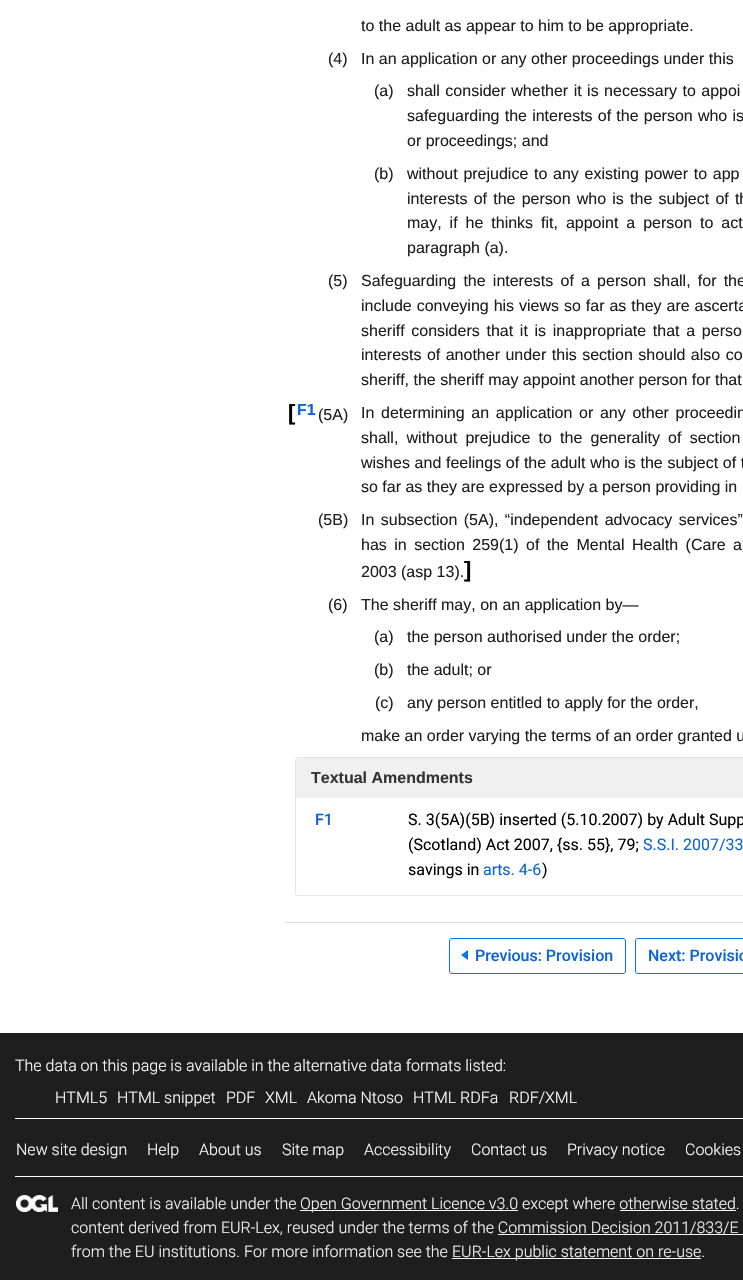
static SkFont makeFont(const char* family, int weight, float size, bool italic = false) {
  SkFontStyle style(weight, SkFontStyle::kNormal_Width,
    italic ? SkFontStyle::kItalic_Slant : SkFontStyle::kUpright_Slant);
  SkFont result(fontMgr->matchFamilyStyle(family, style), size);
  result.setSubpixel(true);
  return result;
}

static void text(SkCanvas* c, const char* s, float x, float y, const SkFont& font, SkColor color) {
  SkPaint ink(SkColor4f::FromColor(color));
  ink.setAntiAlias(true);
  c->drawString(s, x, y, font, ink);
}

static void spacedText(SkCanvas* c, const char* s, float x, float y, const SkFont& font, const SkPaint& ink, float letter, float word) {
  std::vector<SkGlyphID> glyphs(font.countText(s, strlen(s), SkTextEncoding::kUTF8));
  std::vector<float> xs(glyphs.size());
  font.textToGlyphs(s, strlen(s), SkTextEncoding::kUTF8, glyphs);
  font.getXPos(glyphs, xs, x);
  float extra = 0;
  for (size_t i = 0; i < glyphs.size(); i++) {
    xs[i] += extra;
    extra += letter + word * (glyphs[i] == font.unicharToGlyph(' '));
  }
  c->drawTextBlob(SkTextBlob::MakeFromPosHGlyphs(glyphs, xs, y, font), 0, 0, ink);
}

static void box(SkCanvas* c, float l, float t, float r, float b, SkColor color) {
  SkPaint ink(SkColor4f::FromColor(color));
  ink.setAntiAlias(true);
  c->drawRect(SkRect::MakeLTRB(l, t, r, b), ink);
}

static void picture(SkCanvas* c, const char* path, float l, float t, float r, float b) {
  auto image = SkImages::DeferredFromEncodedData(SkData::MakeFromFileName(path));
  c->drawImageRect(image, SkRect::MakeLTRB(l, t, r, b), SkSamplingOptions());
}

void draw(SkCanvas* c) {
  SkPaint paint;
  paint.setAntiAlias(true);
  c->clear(0xffffffff);
  SkFont face1 = makeFont("Liberation Sans", 400, 16);
  text(c, "to the adult as appear to him to be appropriate.", 361, 31, face1, 0xff1e1e1e);
  text(c, "(4)", 328, 64, face1, 0xff1e1e1e);
  text(c, "In an application or any other proceedings under this", 361, 64, face1, 0xff1e1e1e);
  text(c, "(a)", 374, 96, face1, 0xff1e1e1e);
  paint.setColor(0xff1e1e1e);
  spacedText(c, "shall consider whether it is necessary to appoi", 407, 96, face1, paint, 0, 1);
  spacedText(c, "safeguarding the interests of the person who is", 407, 121, face1, paint, 0, 0.75f);
  text(c, "or proceedings; and", 407, 146, face1, 0xff1e1e1e);
  text(c, "(b)", 374, 179, face1, 0xff1e1e1e);
  spacedText(c, "without prejudice to any existing power to app", 407, 179, face1, paint, 0, 1.25f);
  spacedText(c, "interests of the person who is the subject of th", 407, 204, face1, paint, 0, 1.75f);
  spacedText(c, "may, if he thinks fit, appoint a person to act", 407, 228, face1, paint, 0, 3.5f);
  text(c, "paragraph (a).", 407, 253, face1, 0xff1e1e1e);
  text(c, "(5)", 328, 286, face1, 0xff1e1e1e);
  spacedText(c, "Safeguarding the interests of a person shall, for the", 361, 286, face1, paint, 0, 2.75f);
  spacedText(c, "include conveying his views so far as they are ascerta", 361, 311, face1, paint, 0, 0.5f);
  spacedText(c, "sheriff considers that it is inappropriate that a perso", 361, 336, face1, paint, 0, 2.25f);
  spacedText(c, "interests of another under this section should also co", 361, 360, face1, paint, 0, 1);
  text(c, "sheriff, the sheriff may appoint another person for that", 361, 385, face1, 0xff1e1e1e);
  SkFont face2 = makeFont("Liberation Sans", 700, 22);
  text(c, "[", 288, 420, face2, 0xff000000);
  SkFont face3 = makeFont("Liberation Sans", 700, 16);
  text(c, "F1", 297, 415, face3, 0xff0a64d7);
  text(c, "(5A)", 318, 420, face1, 0xff1e1e1e);
  spacedText(c, "In determining an application or any other proceedin", 361, 418, face1, paint, 0, 2.25f);
  spacedText(c, "shall, without prejudice to the generality of section", 361, 443, face1, paint, 0, 3.75f);
  spacedText(c, "wishes and feelings of the adult who is the subject of t", 361, 468, face1, paint, 0, 0.25f);
  text(c, "so far as they are expressed by a person providing in", 361, 492, face1, 0xff1e1e1e);
  text(c, "(5B)", 318, 525, face1, 0xff1e1e1e);
  spacedText(c, "In subsection (5A), “independent advocacy services”", 361, 525, face1, paint, 0, 2);
  spacedText(c, "has in section 259(1) of the Mental Health (Care a", 361, 550, face1, paint, 0, 3);
  text(c, "2003 (asp 13).", 361, 577, face1, 0xff1e1e1e);
  text(c, "]", 464, 577, face2, 0xff000000);
  text(c, "(6)", 328, 610, face1, 0xff1e1e1e);
  text(c, "The sheriff may, on an application by—", 361, 610, face1, 0xff1e1e1e);
  text(c, "(a)", 374, 642, face1, 0xff1e1e1e);
  text(c, "the person authorised under the order;", 407, 642, face1, 0xff1e1e1e);
  text(c, "(b)", 374, 675, face1, 0xff1e1e1e);
  text(c, "the adult; or", 407, 675, face1, 0xff1e1e1e);
  text(c, "(c)", 375, 708, face1, 0xff1e1e1e);
  text(c, "any person entitled to apply for the order,", 407, 708, face1, 0xff1e1e1e);
  text(c, "make an order varying the terms of an order granted u", 361, 741, face1, 0xff1e1e1e);
  paint.setStyle(SkPaint::kStroke_Style);
  paint.setStrokeWidth(1);
  paint.setColor(0xffe6e6e6);
  c->drawRoundRect(SkRect::MakeLTRB(295.5f, 757.5f, 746.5f, 895.5f), 2.5f, 2.5f, paint);
  box(c, 296, 758, 743, 798, 0xfff0f0f0);
  text(c, "Textual Amendments", 311, 783, face3, 0xff333333);
  SkFont face4 = makeFont("Roboto", 500, 16);
  text(c, "F1", 315, 825, face4, 0xff0a64d7);
  SkFont face5 = makeFont("Roboto", 400, 16);
  text(c, "S. 3(5A)(5B) inserted (5.10.2007) by Adult Supp", 408, 825, face5, 0xff000000);
  text(c, "(Scotland) Act 2007, {ss. 55}, 79;", 408, 850, face5, 0xff000000);
  text(c, "S.S.I. 2007/33", 643, 850, face5, 0xff0a64d7);
  text(c, "savings in", 408, 875, face5, 0xff000000);
  text(c, "arts. 4-6", 483, 875, face5, 0xff0a64d7);
  text(c, ")", 542, 875, face5, 0xff000000);
  box(c, 285, 922, 743, 923, 0xffdcdcdc);
  paint.setColor(0xff0573eb);
  c->drawRoundRect(SkRect::MakeLTRB(449.5f, 938.5f, 625.5f, 973.5f), 2.5f, 2.5f, paint);
  paint.setStyle(SkPaint::kFill_Style);
  c->drawPath(SkPathBuilder().moveTo(468, 950).lineTo(468, 960).lineTo(461, 955).close().detach(), paint);
  text(c, "Previous: Provision", 475, 961, face4, 0xff0a64d7);
  paint.setStyle(SkPaint::kStroke_Style);
  c->drawRoundRect(SkRect::MakeLTRB(635.5f, 938.5f, 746.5f, 973.5f), 2.5f, 2.5f, paint);
  text(c, "Next: Provisio", 648, 961, face4, 0xff0a64d7);
  box(c, 0, 1033, 743, 1280, 0xff1e1e1e);
  box(c, 15, 1118, 743, 1119, 0xffffffff);
  SkFont face6 = makeFont("Roboto", 300, 16);
  text(c, "The data on this page is available in the alternative data formats listed:", 15, 1071, face6, 0xffffffff);
  text(c, "HTML5", 55, 1103, face6, 0xffffffff);
  text(c, "HTML snippet", 117, 1103, face6, 0xffffffff);
  text(c, "PDF", 226, 1103, face6, 0xffffffff);
  text(c, "XML", 265, 1103, face6, 0xffffffff);
  text(c, "Akoma Ntoso", 307, 1103, face6, 0xffffffff);
  text(c, "HTML RDFa", 413, 1103, face6, 0xffffffff);
  text(c, "RDF/XML", 509, 1103, face6, 0xffffffff);
  text(c, "New site design", 16, 1155, face6, 0xffffffff);
  text(c, "Help", 147, 1155, face6, 0xffffffff);
  text(c, "About us", 199, 1155, face6, 0xffffffff);
  text(c, "Site map", 282, 1155, face6, 0xffffffff);
  text(c, "Accessibility", 364, 1155, face6, 0xffffffff);
  text(c, "Contact us", 471, 1155, face6, 0xffffffff);
  text(c, "Privacy notice", 567, 1155, face6, 0xffffffff);
  text(c, "Cookies", 685, 1155, face6, 0xffffffff);
  box(c, 15, 1176, 743, 1177, 0xffffffff);
  picture(c, "img_01.png", 16, 1195, 58, 1212);
  text(c, "All content is available under the", 71, 1209, face6, 0xfff5f5f5);
  box(c, 300, 1210, 518, 1211, 0xfff5f5f5);
  text(c, "Open Government Licence v3.0 except where otherwise stated.", 300, 1209, face6, 0xfff5f5f5);
  box(c, 620, 1210, 736, 1211, 0xfff5f5f5);
  text(c, "content derived from EUR-Lex, reused under the terms of the Commission Decision 2011/833/E", 71, 1233, face6, 0xfff5f5f5);
  box(c, 498, 1234, 743, 1235, 0xfff5f5f5);
  text(c, "from the EU institutions. For more information see the", 71, 1257, face6, 0xfff5f5f5);
  box(c, 452, 1258, 701, 1259, 0xfff5f5f5);
  text(c, "EUR-Lex public statement on re-use.", 452, 1257, face6, 0xfff5f5f5);
}
